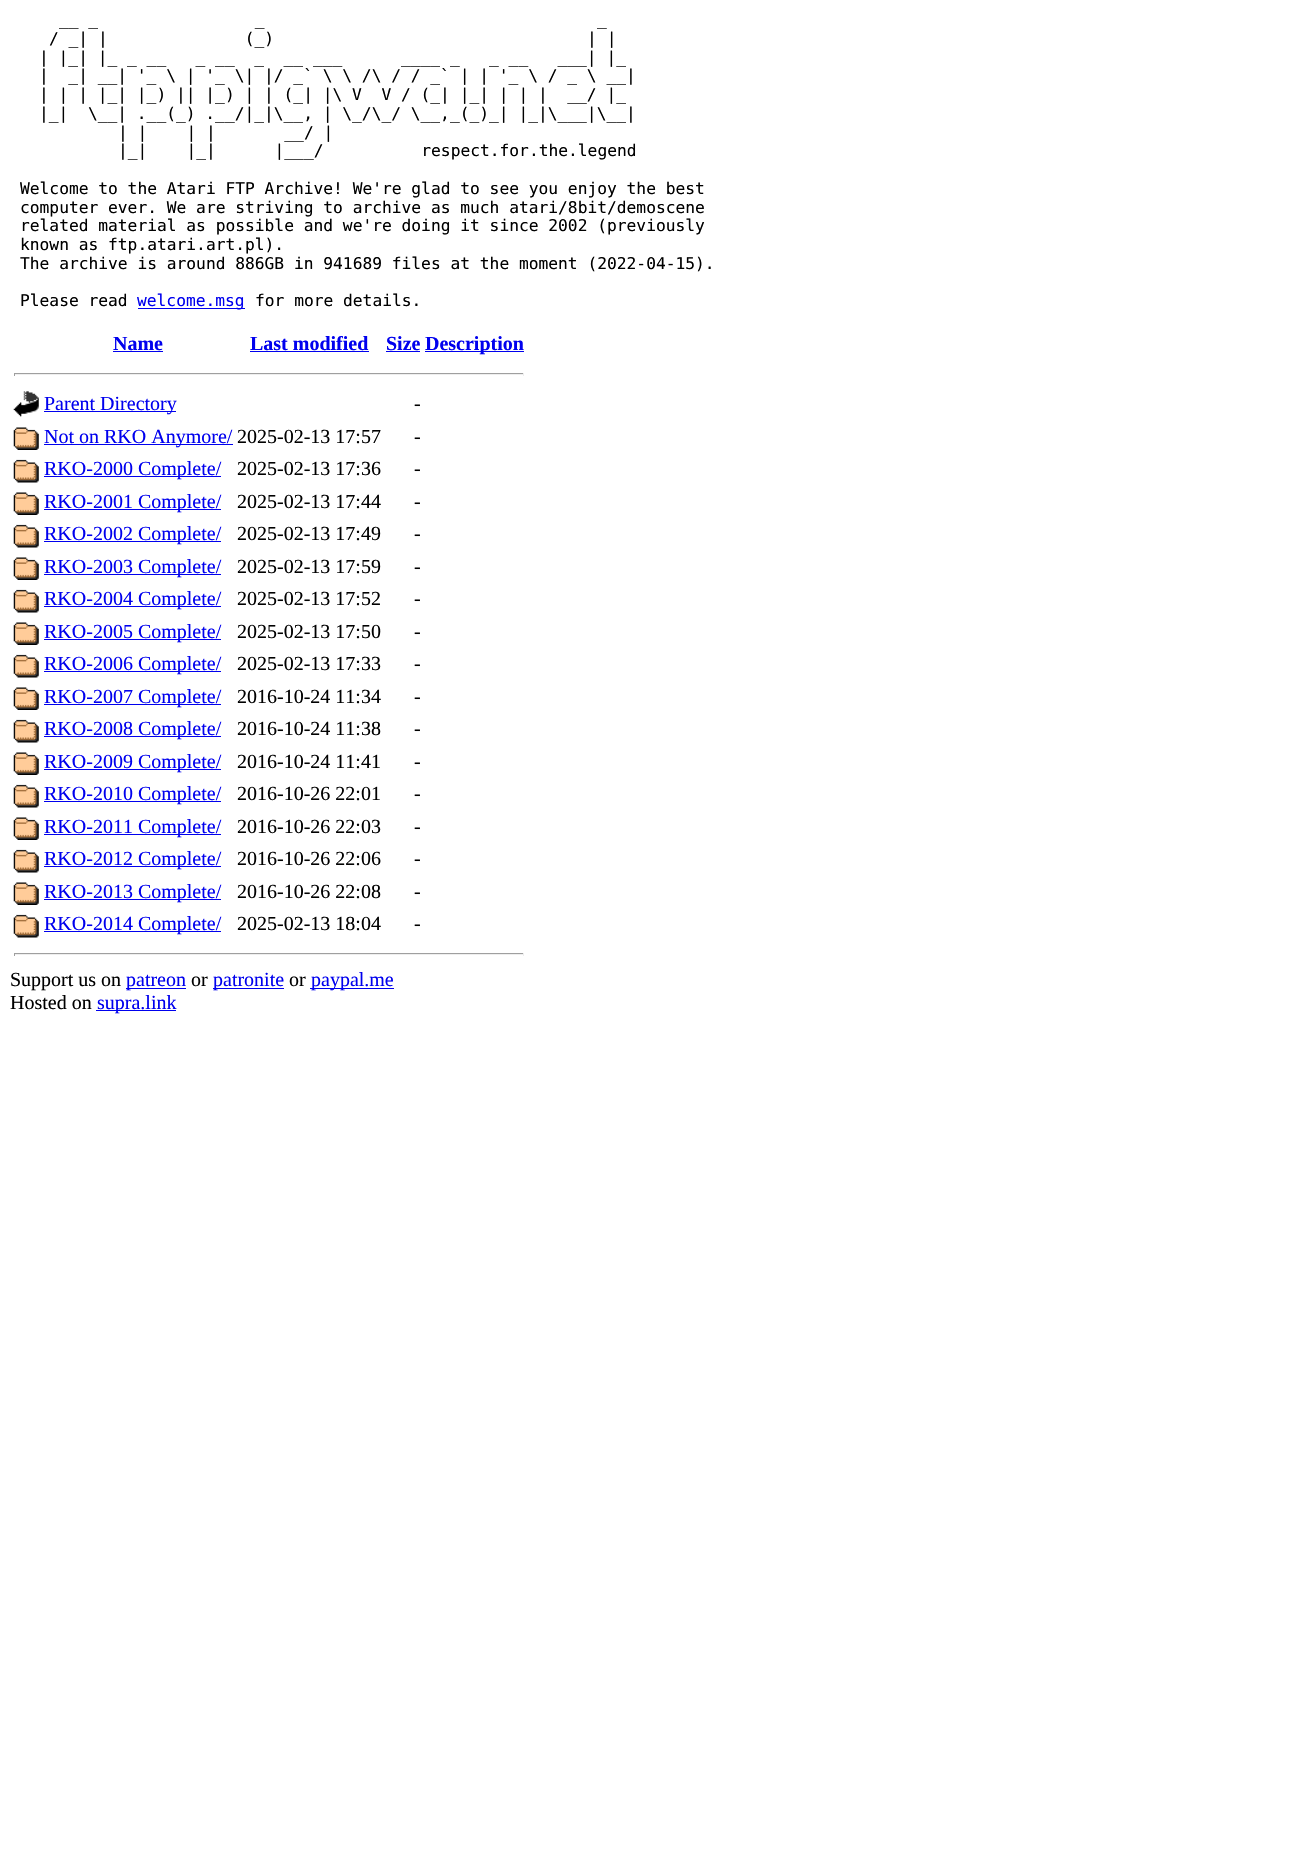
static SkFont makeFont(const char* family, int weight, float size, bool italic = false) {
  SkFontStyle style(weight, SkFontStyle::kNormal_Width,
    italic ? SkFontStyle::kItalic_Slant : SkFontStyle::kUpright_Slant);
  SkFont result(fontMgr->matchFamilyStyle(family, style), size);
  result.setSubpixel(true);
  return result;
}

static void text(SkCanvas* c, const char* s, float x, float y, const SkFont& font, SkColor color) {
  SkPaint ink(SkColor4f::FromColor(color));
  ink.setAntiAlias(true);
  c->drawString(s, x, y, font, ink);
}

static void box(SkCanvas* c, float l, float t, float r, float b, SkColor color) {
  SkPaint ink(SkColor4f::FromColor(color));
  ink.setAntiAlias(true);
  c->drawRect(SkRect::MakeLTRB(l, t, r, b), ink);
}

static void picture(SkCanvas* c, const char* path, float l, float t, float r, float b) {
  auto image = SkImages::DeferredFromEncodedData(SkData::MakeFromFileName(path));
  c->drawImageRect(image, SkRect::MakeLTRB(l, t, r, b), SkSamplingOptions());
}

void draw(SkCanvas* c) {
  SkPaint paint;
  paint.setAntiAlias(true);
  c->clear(0xffffffff);
  SkFont face1 = makeFont("DejaVu Sans Mono", 400, 16.25f);
  text(c, "__ _                _                                  _", 59, 25, face1, 0xff000000);
  text(c, "/ _| |              (_)                                | |", 49, 44, face1, 0xff000000);
  text(c, "| |_| |_ _ __   _ __  _  __ ___      ____ _   _ __   ___| |_", 39, 63, face1, 0xff000000);
  text(c, "|  _| __| '_ \\ | '_ \\| |/ _` \\ \\ /\\ / / _` | | '_ \\ / _ \\ __|", 39, 81, face1, 0xff000000);
  text(c, "| | | |_| |_) || |_) | | (_| |\\ V  V / (_| |_| | | |  __/ |_", 39, 100, face1, 0xff000000);
  text(c, "|_|  \\__| .__(_) .__/|_|\\__, | \\_/\\_/ \\__,_(_)_| |_|\\___|\\__|", 39, 119, face1, 0xff000000);
  text(c, "| |    | |       __/ |", 118, 138, face1, 0xff000000);
  text(c, "|_|    |_|      |___/          respect.for.the.legend", 118, 156, face1, 0xff000000);
  text(c, "Welcome to the Atari FTP Archive! We're glad to see you enjoy the best", 20, 194, face1, 0xff000000);
  text(c, "computer ever. We are striving to archive as much atari/8bit/demoscene", 20, 213, face1, 0xff000000);
  text(c, "related material as possible and we're doing it since 2002 (previously", 20, 231, face1, 0xff000000);
  text(c, "known as ftp.atari.art.pl).", 20, 250, face1, 0xff000000);
  text(c, "The archive is around 886GB in 941689 files at the moment (2022-04-15).", 20, 269, face1, 0xff000000);
  text(c, "Please read", 20, 306, face1, 0xff000000);
  box(c, 138, 308, 245, 309, 0xff0000ee);
  text(c, "welcome.msg", 137, 306, face1, 0xff0000ee);
  text(c, "for more details.", 255, 306, face1, 0xff000000);
  SkFont face2 = makeFont("Liberation Serif", 700, 20);
  text(c, "Name", 113, 350, face2, 0xff0000ee);
  box(c, 113, 351, 163, 352, 0xff0000ee);
  text(c, "Last modified", 250, 350, face2, 0xff0000ee);
  box(c, 250, 351, 369, 352, 0xff0000ee);
  text(c, "Size", 386, 350, face2, 0xff0000ee);
  box(c, 386, 351, 420, 352, 0xff0000ee);
  box(c, 425, 351, 524, 352, 0xff0000ee);
  text(c, "Description", 425, 350, face2, 0xff0000ee);
  box(c, 14, 373, 524, 374, 0xff9f9f9f);
  box(c, 523, 373, 524, 376, 0xffeeeeee);
  box(c, 14, 374, 524, 375, 0xffeeeeee);
  box(c, 14, 373, 15, 376, 0xff9f9f9f);
  picture(c, "img_01.png", 13, 391, 39, 417);
  box(c, 44, 411, 176, 412, 0xff0000ee);
  SkFont face3 = makeFont("Liberation Serif", 400, 20);
  text(c, "Parent Directory", 44, 410, face3, 0xff0000ee);
  text(c, "-", 414, 410, face3, 0xff000000);
  picture(c, "img_02.png", 13, 427, 39, 450);
  box(c, 44, 444, 233, 445, 0xff0000ee);
  text(c, "Not on RKO Anymore/", 44, 443, face3, 0xff0000ee);
  text(c, "2025-02-13 17:57", 237, 443, face3, 0xff000000);
  text(c, "-", 414, 443, face3, 0xff000000);
  picture(c, "img_03.png", 13, 459, 39, 483);
  box(c, 44, 476, 221, 477, 0xff0000ee);
  text(c, "RKO-2000 Complete/", 44, 475, face3, 0xff0000ee);
  text(c, "2025-02-13 17:36", 237, 475, face3, 0xff000000);
  text(c, "-", 414, 475, face3, 0xff000000);
  picture(c, "img_02.png", 13, 492, 39, 515);
  box(c, 44, 509, 221, 510, 0xff0000ee);
  text(c, "RKO-2001 Complete/", 44, 508, face3, 0xff0000ee);
  text(c, "2025-02-13 17:44", 237, 508, face3, 0xff000000);
  text(c, "-", 414, 508, face3, 0xff000000);
  picture(c, "img_03.png", 13, 524, 39, 548);
  box(c, 44, 541, 221, 542, 0xff0000ee);
  text(c, "RKO-2002 Complete/", 44, 540, face3, 0xff0000ee);
  text(c, "2025-02-13 17:49", 237, 540, face3, 0xff000000);
  text(c, "-", 414, 540, face3, 0xff000000);
  picture(c, "img_02.png", 13, 557, 39, 580);
  box(c, 44, 574, 221, 575, 0xff0000ee);
  text(c, "RKO-2003 Complete/", 44, 573, face3, 0xff0000ee);
  text(c, "2025-02-13 17:59", 237, 573, face3, 0xff000000);
  text(c, "-", 414, 573, face3, 0xff000000);
  picture(c, "img_04.png", 13, 589, 39, 613);
  box(c, 44, 606, 221, 607, 0xff0000ee);
  text(c, "RKO-2004 Complete/", 44, 605, face3, 0xff0000ee);
  text(c, "2025-02-13 17:52", 237, 605, face3, 0xff000000);
  text(c, "-", 414, 605, face3, 0xff000000);
  picture(c, "img_02.png", 13, 622, 39, 645);
  box(c, 44, 639, 221, 640, 0xff0000ee);
  text(c, "RKO-2005 Complete/", 44, 638, face3, 0xff0000ee);
  text(c, "2025-02-13 17:50", 237, 638, face3, 0xff000000);
  text(c, "-", 414, 638, face3, 0xff000000);
  picture(c, "img_03.png", 13, 654, 39, 678);
  box(c, 44, 671, 221, 672, 0xff0000ee);
  text(c, "RKO-2006 Complete/", 44, 670, face3, 0xff0000ee);
  text(c, "2025-02-13 17:33", 237, 670, face3, 0xff000000);
  text(c, "-", 414, 670, face3, 0xff000000);
  picture(c, "img_02.png", 13, 687, 39, 710);
  box(c, 44, 704, 221, 705, 0xff0000ee);
  text(c, "RKO-2007 Complete/", 44, 703, face3, 0xff0000ee);
  text(c, "2016-10-24 11:34", 237, 703, face3, 0xff000000);
  text(c, "-", 414, 703, face3, 0xff000000);
  picture(c, "img_03.png", 13, 719, 39, 743);
  box(c, 44, 736, 221, 737, 0xff0000ee);
  text(c, "RKO-2008 Complete/", 44, 735, face3, 0xff0000ee);
  text(c, "2016-10-24 11:38", 237, 735, face3, 0xff000000);
  text(c, "-", 414, 735, face3, 0xff000000);
  picture(c, "img_02.png", 13, 752, 39, 775);
  box(c, 44, 769, 221, 770, 0xff0000ee);
  text(c, "RKO-2009 Complete/", 44, 768, face3, 0xff0000ee);
  text(c, "2016-10-24 11:41", 237, 768, face3, 0xff000000);
  text(c, "-", 414, 768, face3, 0xff000000);
  picture(c, "img_05.png", 13, 784, 39, 808);
  box(c, 44, 801, 221, 802, 0xff0000ee);
  text(c, "RKO-2010 Complete/", 44, 800, face3, 0xff0000ee);
  text(c, "2016-10-26 22:01", 237, 800, face3, 0xff000000);
  text(c, "-", 414, 800, face3, 0xff000000);
  picture(c, "img_02.png", 13, 817, 39, 840);
  box(c, 44, 834, 221, 835, 0xff0000ee);
  text(c, "RKO-2011 Complete/", 44, 833, face3, 0xff0000ee);
  text(c, "2016-10-26 22:03", 237, 833, face3, 0xff000000);
  text(c, "-", 414, 833, face3, 0xff000000);
  picture(c, "img_03.png", 13, 849, 39, 873);
  box(c, 44, 866, 221, 867, 0xff0000ee);
  text(c, "RKO-2012 Complete/", 44, 865, face3, 0xff0000ee);
  text(c, "2016-10-26 22:06", 237, 865, face3, 0xff000000);
  text(c, "-", 414, 865, face3, 0xff000000);
  picture(c, "img_02.png", 13, 882, 39, 905);
  box(c, 44, 899, 221, 900, 0xff0000ee);
  text(c, "RKO-2013 Complete/", 44, 898, face3, 0xff0000ee);
  text(c, "2016-10-26 22:08", 237, 898, face3, 0xff000000);
  text(c, "-", 414, 898, face3, 0xff000000);
  picture(c, "img_03.png", 13, 914, 39, 938);
  box(c, 44, 931, 221, 932, 0xff0000ee);
  text(c, "RKO-2014 Complete/", 44, 930, face3, 0xff0000ee);
  text(c, "2025-02-13 18:04", 237, 930, face3, 0xff000000);
  text(c, "-", 414, 930, face3, 0xff000000);
  box(c, 14, 953, 524, 954, 0xff9f9f9f);
  box(c, 523, 953, 524, 956, 0xffeeeeee);
  box(c, 14, 954, 524, 955, 0xffeeeeee);
  box(c, 14, 953, 15, 956, 0xff9f9f9f);
  text(c, "Support us on", 10, 986, face3, 0xff000000);
  box(c, 126, 988, 186, 989, 0xff0000ee);
  text(c, "patreon", 126, 986, face3, 0xff0000ee);
  text(c, "or", 191, 986, face3, 0xff000000);
  box(c, 213, 988, 284, 989, 0xff0000ee);
  text(c, "patronite", 213, 986, face3, 0xff0000ee);
  text(c, "or", 289, 986, face3, 0xff000000);
  box(c, 310, 988, 394, 989, 0xff0000ee);
  text(c, "paypal.me", 311, 986, face3, 0xff0000ee);
  text(c, "Hosted on", 10, 1009, face3, 0xff000000);
  box(c, 96, 1010, 176, 1011, 0xff0000ee);
  text(c, "supra.link", 97, 1009, face3, 0xff0000ee);
}
